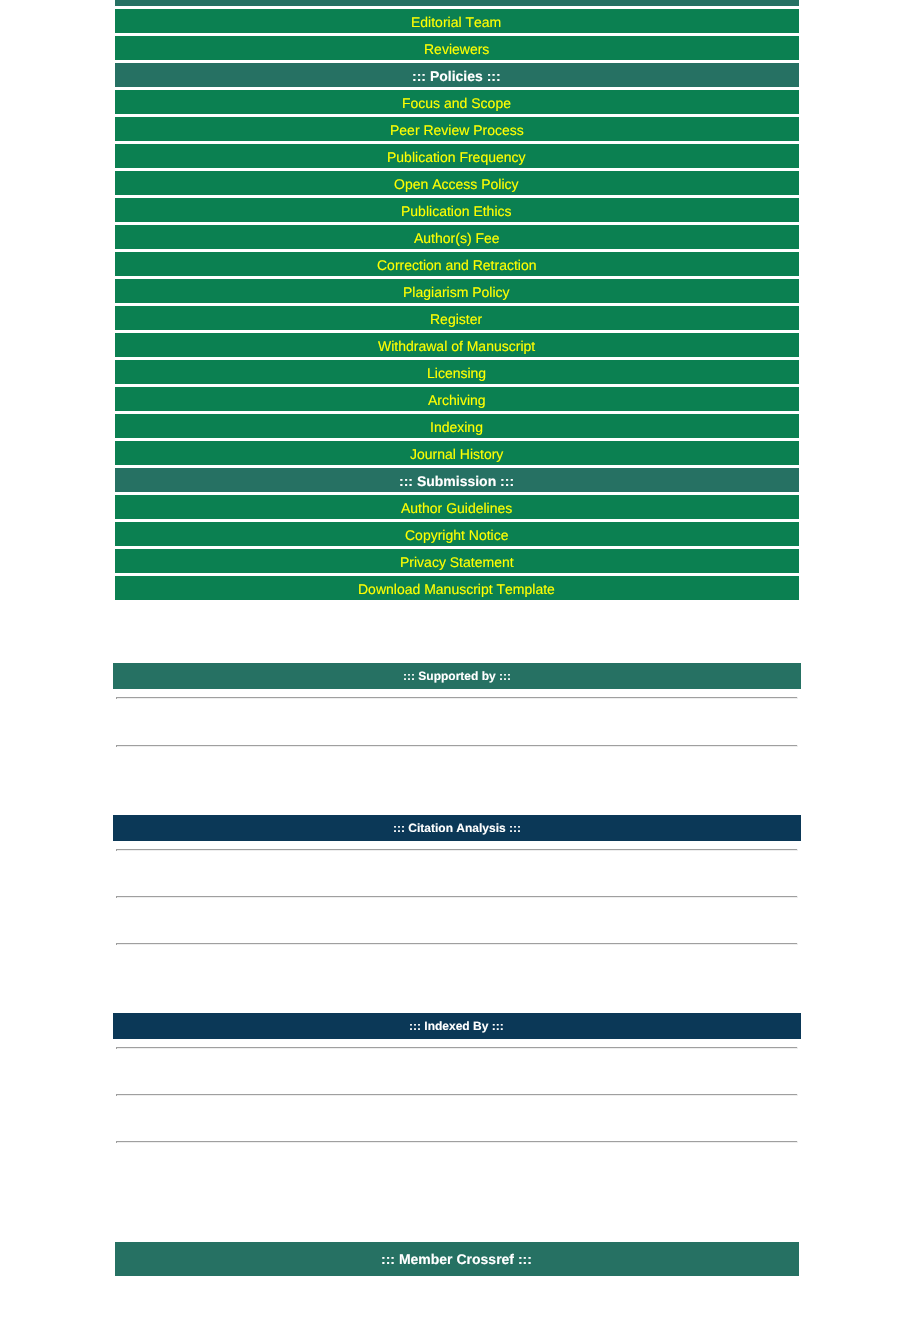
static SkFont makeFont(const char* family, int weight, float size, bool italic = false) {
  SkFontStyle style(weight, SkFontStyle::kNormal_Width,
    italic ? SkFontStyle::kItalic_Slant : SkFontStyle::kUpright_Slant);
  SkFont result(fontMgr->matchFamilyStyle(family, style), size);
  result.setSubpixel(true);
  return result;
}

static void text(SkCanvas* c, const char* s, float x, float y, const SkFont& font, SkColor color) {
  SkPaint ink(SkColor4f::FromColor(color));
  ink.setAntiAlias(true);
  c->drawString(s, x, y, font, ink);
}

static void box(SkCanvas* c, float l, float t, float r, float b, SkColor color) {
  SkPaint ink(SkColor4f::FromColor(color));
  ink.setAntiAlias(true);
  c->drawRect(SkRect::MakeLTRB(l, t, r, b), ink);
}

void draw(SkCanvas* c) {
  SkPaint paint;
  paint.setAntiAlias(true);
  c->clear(0xffffffff);
  box(c, 115, 0, 799, 6, 0xff267163);
  box(c, 115, 9, 799, 33, 0xff0b8051);
  SkFont face1 = makeFont("Liberation Sans", 400, 14);
  text(c, "Editorial Team", 411, 27, face1, 0xffffff00);
  box(c, 115, 36, 799, 60, 0xff0b8051);
  text(c, "Reviewers", 424, 54, face1, 0xffffff00);
  box(c, 115, 63, 799, 87, 0xff267163);
  SkFont face2 = makeFont("Liberation Sans", 700, 14);
  text(c, "::: Policies :::", 412, 81, face2, 0xffffffff);
  box(c, 115, 90, 799, 114, 0xff0b8051);
  text(c, "Focus and Scope", 402, 108, face1, 0xffffff00);
  box(c, 115, 117, 799, 141, 0xff0b8051);
  text(c, "Peer Review Process", 390, 135, face1, 0xffffff00);
  box(c, 115, 144, 799, 168, 0xff0b8051);
  text(c, "Publication Frequency", 387, 162, face1, 0xffffff00);
  box(c, 115, 171, 799, 195, 0xff0b8051);
  text(c, "Open Access Policy", 394, 189, face1, 0xffffff00);
  box(c, 115, 198, 799, 222, 0xff0b8051);
  text(c, "Publication Ethics", 401, 216, face1, 0xffffff00);
  box(c, 115, 225, 799, 249, 0xff0b8051);
  text(c, "Author(s) Fee", 414, 243, face1, 0xffffff00);
  box(c, 115, 252, 799, 276, 0xff0b8051);
  text(c, "Correction and Retraction", 377, 270, face1, 0xffffff00);
  box(c, 115, 279, 799, 303, 0xff0b8051);
  text(c, "Plagiarism Policy", 403, 297, face1, 0xffffff00);
  box(c, 115, 306, 799, 330, 0xff0b8051);
  text(c, "Register", 430, 324, face1, 0xffffff00);
  box(c, 115, 333, 799, 357, 0xff0b8051);
  text(c, "Withdrawal of Manuscript", 378, 351, face1, 0xffffff00);
  box(c, 115, 360, 799, 384, 0xff0b8051);
  text(c, "Licensing", 427, 378, face1, 0xffffff00);
  box(c, 115, 387, 799, 411, 0xff0b8051);
  text(c, "Archiving", 428, 405, face1, 0xffffff00);
  box(c, 115, 414, 799, 438, 0xff0b8051);
  text(c, "Indexing", 430, 432, face1, 0xffffff00);
  box(c, 115, 441, 799, 465, 0xff0b8051);
  text(c, "Journal History", 410, 459, face1, 0xffffff00);
  box(c, 115, 468, 799, 492, 0xff267163);
  text(c, "::: Submission :::", 399, 486, face2, 0xffffffff);
  box(c, 115, 495, 799, 519, 0xff0b8051);
  text(c, "Author Guidelines", 401, 513, face1, 0xffffff00);
  box(c, 115, 522, 799, 546, 0xff0b8051);
  text(c, "Copyright Notice", 405, 540, face1, 0xffffff00);
  box(c, 115, 549, 799, 573, 0xff0b8051);
  text(c, "Privacy Statement", 400, 567, face1, 0xffffff00);
  box(c, 115, 576, 799, 600, 0xff0b8051);
  text(c, "Download Manuscript Template", 358, 594, face1, 0xffffff00);
  box(c, 113, 663, 801, 689, 0xff267163);
  SkFont face3 = makeFont("Liberation Sans", 700, 12);
  text(c, "::: Supported by :::", 403, 680, face3, 0xffffffff);
  box(c, 116, 697, 798, 698, 0xff9f9f9f);
  box(c, 797, 697, 798, 699, 0xffeeeeee);
  box(c, 116, 698, 798, 699, 0xffeeeeee);
  box(c, 116, 697, 117, 699, 0xff9f9f9f);
  box(c, 116, 745, 798, 746, 0xff9f9f9f);
  box(c, 797, 745, 798, 747, 0xffeeeeee);
  box(c, 116, 746, 798, 747, 0xffeeeeee);
  box(c, 116, 745, 117, 747, 0xff9f9f9f);
  box(c, 113, 815, 801, 841, 0xff0b3857);
  text(c, "::: Citation Analysis :::", 393, 832, face3, 0xffffffff);
  box(c, 116, 849, 798, 850, 0xff9f9f9f);
  box(c, 797, 849, 798, 851, 0xffeeeeee);
  box(c, 116, 850, 798, 851, 0xffeeeeee);
  box(c, 116, 849, 117, 851, 0xff9f9f9f);
  box(c, 116, 896, 798, 897, 0xff9f9f9f);
  box(c, 797, 896, 798, 898, 0xffeeeeee);
  box(c, 116, 897, 798, 898, 0xffeeeeee);
  box(c, 116, 896, 117, 898, 0xff9f9f9f);
  box(c, 116, 943, 798, 944, 0xff9f9f9f);
  box(c, 797, 943, 798, 945, 0xffeeeeee);
  box(c, 116, 944, 798, 945, 0xffeeeeee);
  box(c, 116, 943, 117, 945, 0xff9f9f9f);
  box(c, 113, 1013, 801, 1039, 0xff0b3857);
  text(c, "::: Indexed By :::", 409, 1030, face3, 0xffffffff);
  box(c, 116, 1047, 798, 1048, 0xff9f9f9f);
  box(c, 797, 1047, 798, 1049, 0xffeeeeee);
  box(c, 116, 1048, 798, 1049, 0xffeeeeee);
  box(c, 116, 1047, 117, 1049, 0xff9f9f9f);
  box(c, 116, 1094, 798, 1095, 0xff9f9f9f);
  box(c, 797, 1094, 798, 1096, 0xffeeeeee);
  box(c, 116, 1095, 798, 1096, 0xffeeeeee);
  box(c, 116, 1094, 117, 1096, 0xff9f9f9f);
  box(c, 116, 1141, 798, 1142, 0xff9f9f9f);
  box(c, 797, 1141, 798, 1143, 0xffeeeeee);
  box(c, 116, 1142, 798, 1143, 0xffeeeeee);
  box(c, 116, 1141, 117, 1143, 0xff9f9f9f);
  box(c, 115, 1242, 799, 1276, 0xff267163);
  text(c, "::: Member Crossref :::", 381, 1264, face2, 0xffffffff);
}
